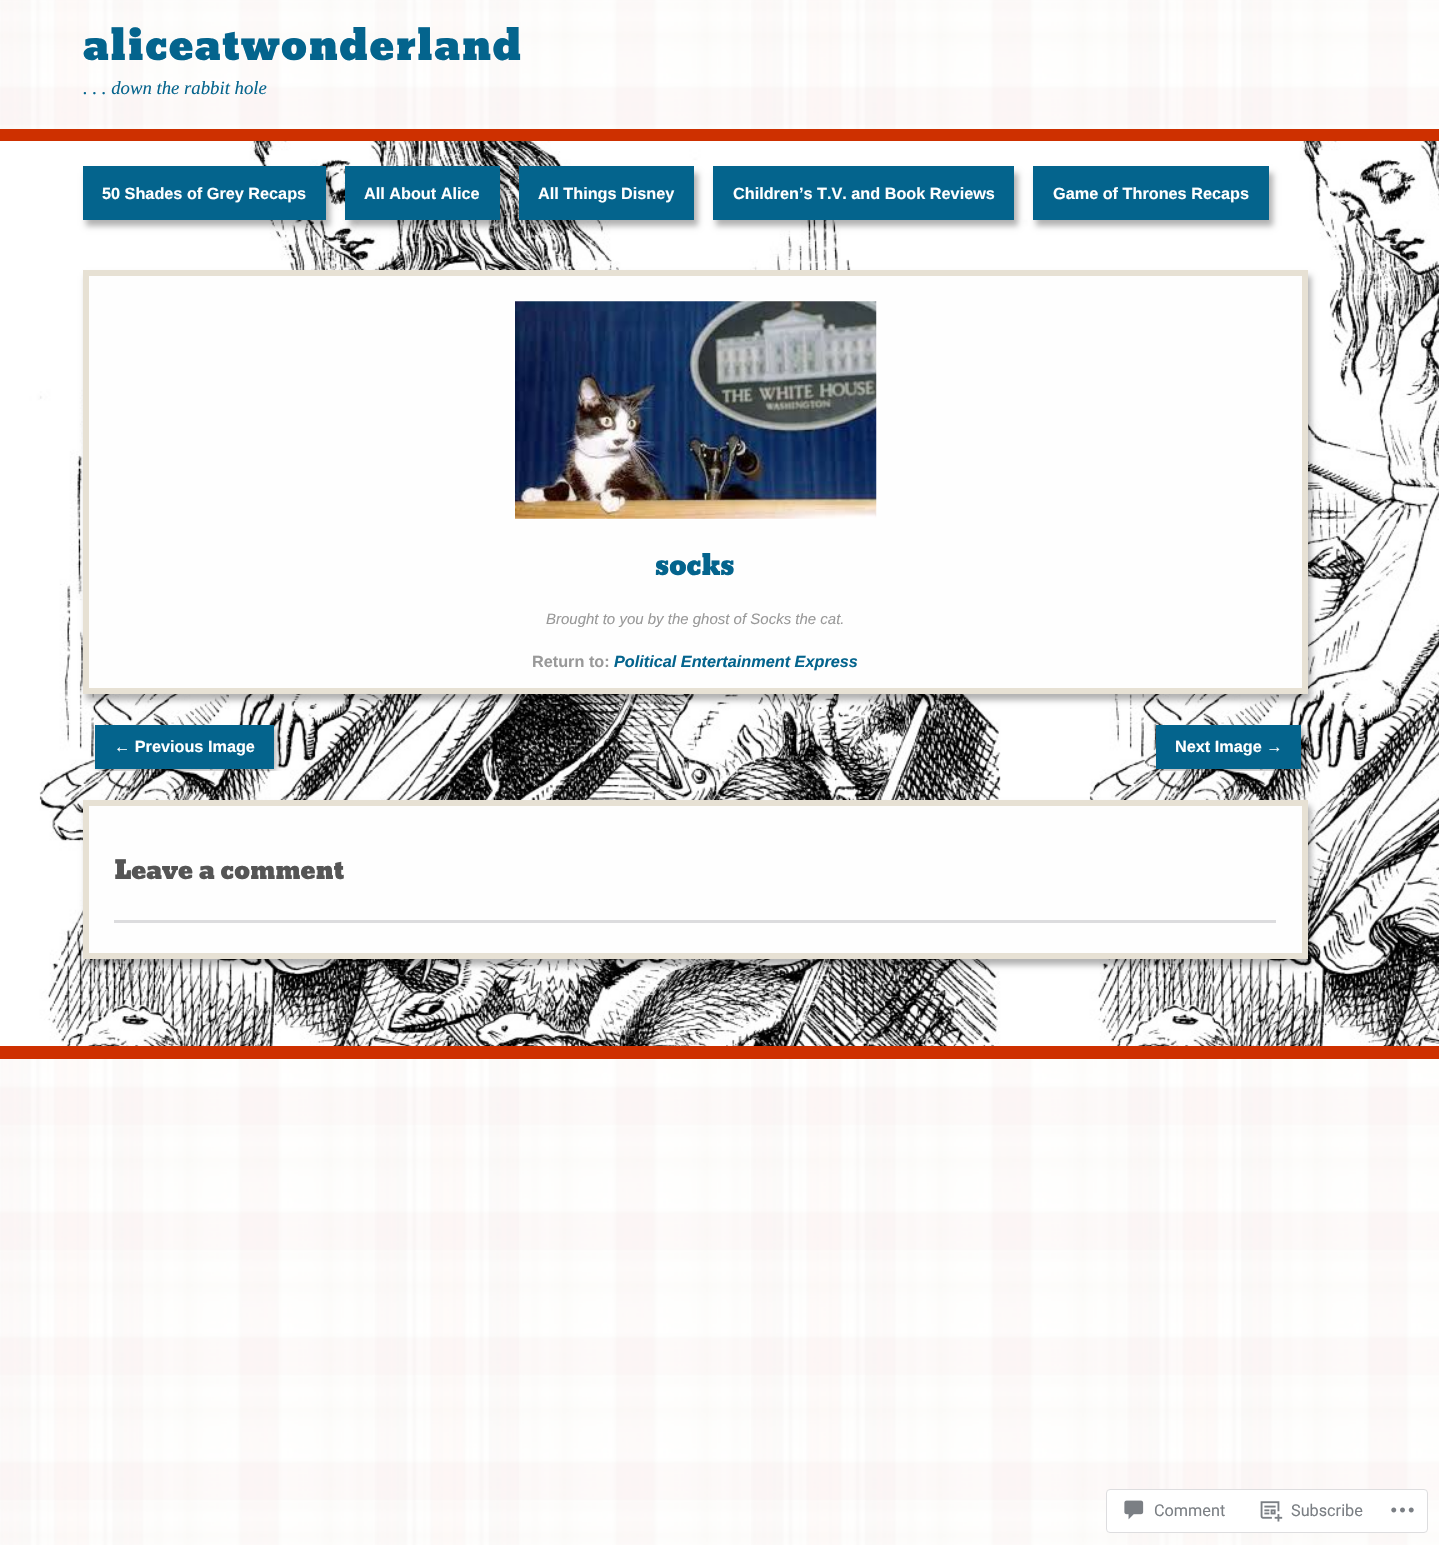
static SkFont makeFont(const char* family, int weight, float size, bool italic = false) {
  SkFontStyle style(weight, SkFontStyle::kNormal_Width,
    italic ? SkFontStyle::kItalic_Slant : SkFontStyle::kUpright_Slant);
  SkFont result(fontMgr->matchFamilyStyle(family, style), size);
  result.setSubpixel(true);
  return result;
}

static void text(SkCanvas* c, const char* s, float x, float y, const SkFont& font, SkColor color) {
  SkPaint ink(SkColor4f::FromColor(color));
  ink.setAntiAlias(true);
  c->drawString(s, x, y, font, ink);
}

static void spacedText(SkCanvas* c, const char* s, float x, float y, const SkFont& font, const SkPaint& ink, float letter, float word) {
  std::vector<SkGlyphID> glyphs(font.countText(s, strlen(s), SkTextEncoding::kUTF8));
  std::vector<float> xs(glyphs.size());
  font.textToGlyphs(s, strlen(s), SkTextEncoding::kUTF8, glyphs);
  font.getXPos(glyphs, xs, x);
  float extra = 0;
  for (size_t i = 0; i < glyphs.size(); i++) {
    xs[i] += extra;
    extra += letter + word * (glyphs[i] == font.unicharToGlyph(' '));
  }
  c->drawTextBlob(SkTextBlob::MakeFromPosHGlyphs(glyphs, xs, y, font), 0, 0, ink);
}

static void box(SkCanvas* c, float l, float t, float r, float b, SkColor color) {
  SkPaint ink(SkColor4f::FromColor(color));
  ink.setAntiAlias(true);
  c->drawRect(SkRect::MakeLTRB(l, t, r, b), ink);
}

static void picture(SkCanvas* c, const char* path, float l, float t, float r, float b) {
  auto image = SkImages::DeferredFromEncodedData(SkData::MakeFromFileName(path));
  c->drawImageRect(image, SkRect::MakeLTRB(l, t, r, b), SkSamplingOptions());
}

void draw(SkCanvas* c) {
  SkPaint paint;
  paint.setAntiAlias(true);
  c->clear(0xffffffff);
  picture(c, "img_01.png", 0, 0, 1439, 1545);
  box(c, 0, 129, 1439, 141, 0xffce3000);
  SkFont face1 = makeFont("Bevan", 400, 41.25f);
  paint.setColor(0xff04648d);
  spacedText(c, "aliceatwonderland", 83, 60, face1, paint, 1.25f, 0);
  SkFont face2 = makeFont("Liberation Serif", 400, 18.75f, true);
  text(c, ". . . down the rabbit hole", 83, 94, face2, 0xff04648d);
  picture(c, "img_02.png", 0, 141, 1439, 1046);
  paint.setColor(0x4d000000);
  paint.setMaskFilter(SkMaskFilter::MakeBlur(kNormal_SkBlurStyle, 3));
  c->drawRect(SkRect::MakeLTRB(86, 173, 330, 226), paint);
  paint.setMaskFilter(nullptr);
  box(c, 83, 166, 326, 220, 0xff04648d);
  SkFont face3 = makeFont("Liberation Sans", 700, 16.25f);
  text(c, "50 Shades of Grey Recaps", 102, 199, face3, 0xffffffff);
  paint.setMaskFilter(SkMaskFilter::MakeBlur(kNormal_SkBlurStyle, 3));
  c->drawRect(SkRect::MakeLTRB(349, 173, 504, 226), paint);
  paint.setMaskFilter(nullptr);
  box(c, 345, 166, 500, 220, 0xff04648d);
  text(c, "All About Alice", 364, 199, face3, 0xffffffff);
  paint.setMaskFilter(SkMaskFilter::MakeBlur(kNormal_SkBlurStyle, 3));
  c->drawRect(SkRect::MakeLTRB(523, 173, 698, 226), paint);
  paint.setMaskFilter(nullptr);
  box(c, 519, 166, 694, 220, 0xff04648d);
  text(c, "All Things Disney", 538, 199, face3, 0xffffffff);
  paint.setMaskFilter(SkMaskFilter::MakeBlur(kNormal_SkBlurStyle, 3));
  c->drawRect(SkRect::MakeLTRB(716, 173, 1018, 226), paint);
  paint.setMaskFilter(nullptr);
  box(c, 713, 166, 1014, 220, 0xff04648d);
  text(c, "Children’s T.V. and Book Reviews", 733, 199, face3, 0xffffffff);
  paint.setMaskFilter(SkMaskFilter::MakeBlur(kNormal_SkBlurStyle, 3));
  c->drawRect(SkRect::MakeLTRB(1036, 173, 1273, 226), paint);
  paint.setMaskFilter(nullptr);
  box(c, 1033, 166, 1269, 220, 0xff04648d);
  text(c, "Game of Thrones Recaps", 1053, 199, face3, 0xffffffff);
  paint.setMaskFilter(SkMaskFilter::MakeBlur(kNormal_SkBlurStyle, 3));
  c->drawRect(SkRect::MakeLTRB(86, 276, 1311, 700), paint);
  paint.setMaskFilter(nullptr);
  paint.setColor(0xfffefefe);
  c->drawRect(SkRect::MakeLTRB(86, 273, 1305, 691), paint);
  paint.setStyle(SkPaint::kStroke_Style);
  paint.setStrokeWidth(6);
  paint.setColor(0xffe7e1d4);
  c->drawRect(SkRect::MakeLTRB(86, 273, 1305, 691), paint);
  picture(c, "img_03.png", 515, 301, 877, 519);
  SkFont face4 = makeFont("Bevan", 400, 27.5f);
  text(c, "socks", 655, 575, face4, 0xff04648d);
  SkFont face5 = makeFont("Liberation Sans", 400, 15, true);
  text(c, "Brought to you by the ghost of Socks the cat.", 546, 624, face5, 0xff999999);
  text(c, "Return to:", 532, 667, face3, 0xff999999);
  SkFont face6 = makeFont("Liberation Sans", 700, 16.25f, true);
  text(c, "Political Entertainment Express", 614, 667, face6, 0xff04648d);
  c->save();
  c->clipRect(SkRect::MakeLTRB(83, 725, 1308, 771));
  paint.setStyle(SkPaint::kFill_Style);
  paint.setColor(0x4d000000);
  paint.setMaskFilter(SkMaskFilter::MakeBlur(kNormal_SkBlurStyle, 3));
  c->drawRect(SkRect::MakeLTRB(98, 728, 276, 771), paint);
  paint.setMaskFilter(nullptr);
  c->restore();
  box(c, 95, 725, 274, 769, 0xff04648d);
  text(c, "← Previous Image", 114, 752, face3, 0xffffffff);
  c->save();
  c->clipRect(SkRect::MakeLTRB(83, 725, 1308, 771));
  paint.setMaskFilter(SkMaskFilter::MakeBlur(kNormal_SkBlurStyle, 3));
  c->drawRect(SkRect::MakeLTRB(1159, 728, 1304, 771), paint);
  paint.setMaskFilter(nullptr);
  c->restore();
  box(c, 1156, 725, 1301, 769, 0xff04648d);
  text(c, "Next Image →", 1175, 752, face3, 0xffffffff);
  paint.setMaskFilter(SkMaskFilter::MakeBlur(kNormal_SkBlurStyle, 3));
  c->drawRect(SkRect::MakeLTRB(86, 806, 1311, 965), paint);
  paint.setMaskFilter(nullptr);
  paint.setColor(0xfffefefe);
  c->drawRect(SkRect::MakeLTRB(86, 803, 1305, 956), paint);
  paint.setStyle(SkPaint::kStroke_Style);
  paint.setColor(0xffe7e1d4);
  c->drawRect(SkRect::MakeLTRB(86, 803, 1305, 956), paint);
  SkFont face7 = makeFont("Bevan", 400, 25);
  text(c, "Leave a comment", 114, 879, face7, 0xff555555);
  box(c, 114, 920, 1276, 923, 0xffdcdcde);
  box(c, 0, 1046, 1439, 1059, 0xffce3000);
  paint.setStyle(SkPaint::kFill_Style);
  paint.setColor(0xfaffffff);
  c->drawRoundRect(SkRect::MakeLTRB(1106.5f, 1489.5f, 1427.5f, 1532.5f), 3.5f, 3.5f, paint);
  paint.setStyle(SkPaint::kStroke_Style);
  paint.setStrokeWidth(1);
  paint.setColor(0xffdddddf);
  c->drawRoundRect(SkRect::MakeLTRB(1106.5f, 1489.5f, 1427.5f, 1532.5f), 3.5f, 3.5f, paint);
  picture(c, "img_04.png", 1124, 1500, 1144, 1520);
  SkFont face8 = makeFont("Roboto", 400, 16.25f);
  text(c, "Comment", 1154, 1516, face8, 0xff7b7f84);
  picture(c, "img_05.png", 1260, 1501, 1283, 1522);
  text(c, "Subscribe", 1291, 1516, face8, 0xff7b7f84);
  picture(c, "img_06.png", 1391, 1507, 1414, 1513);
}
